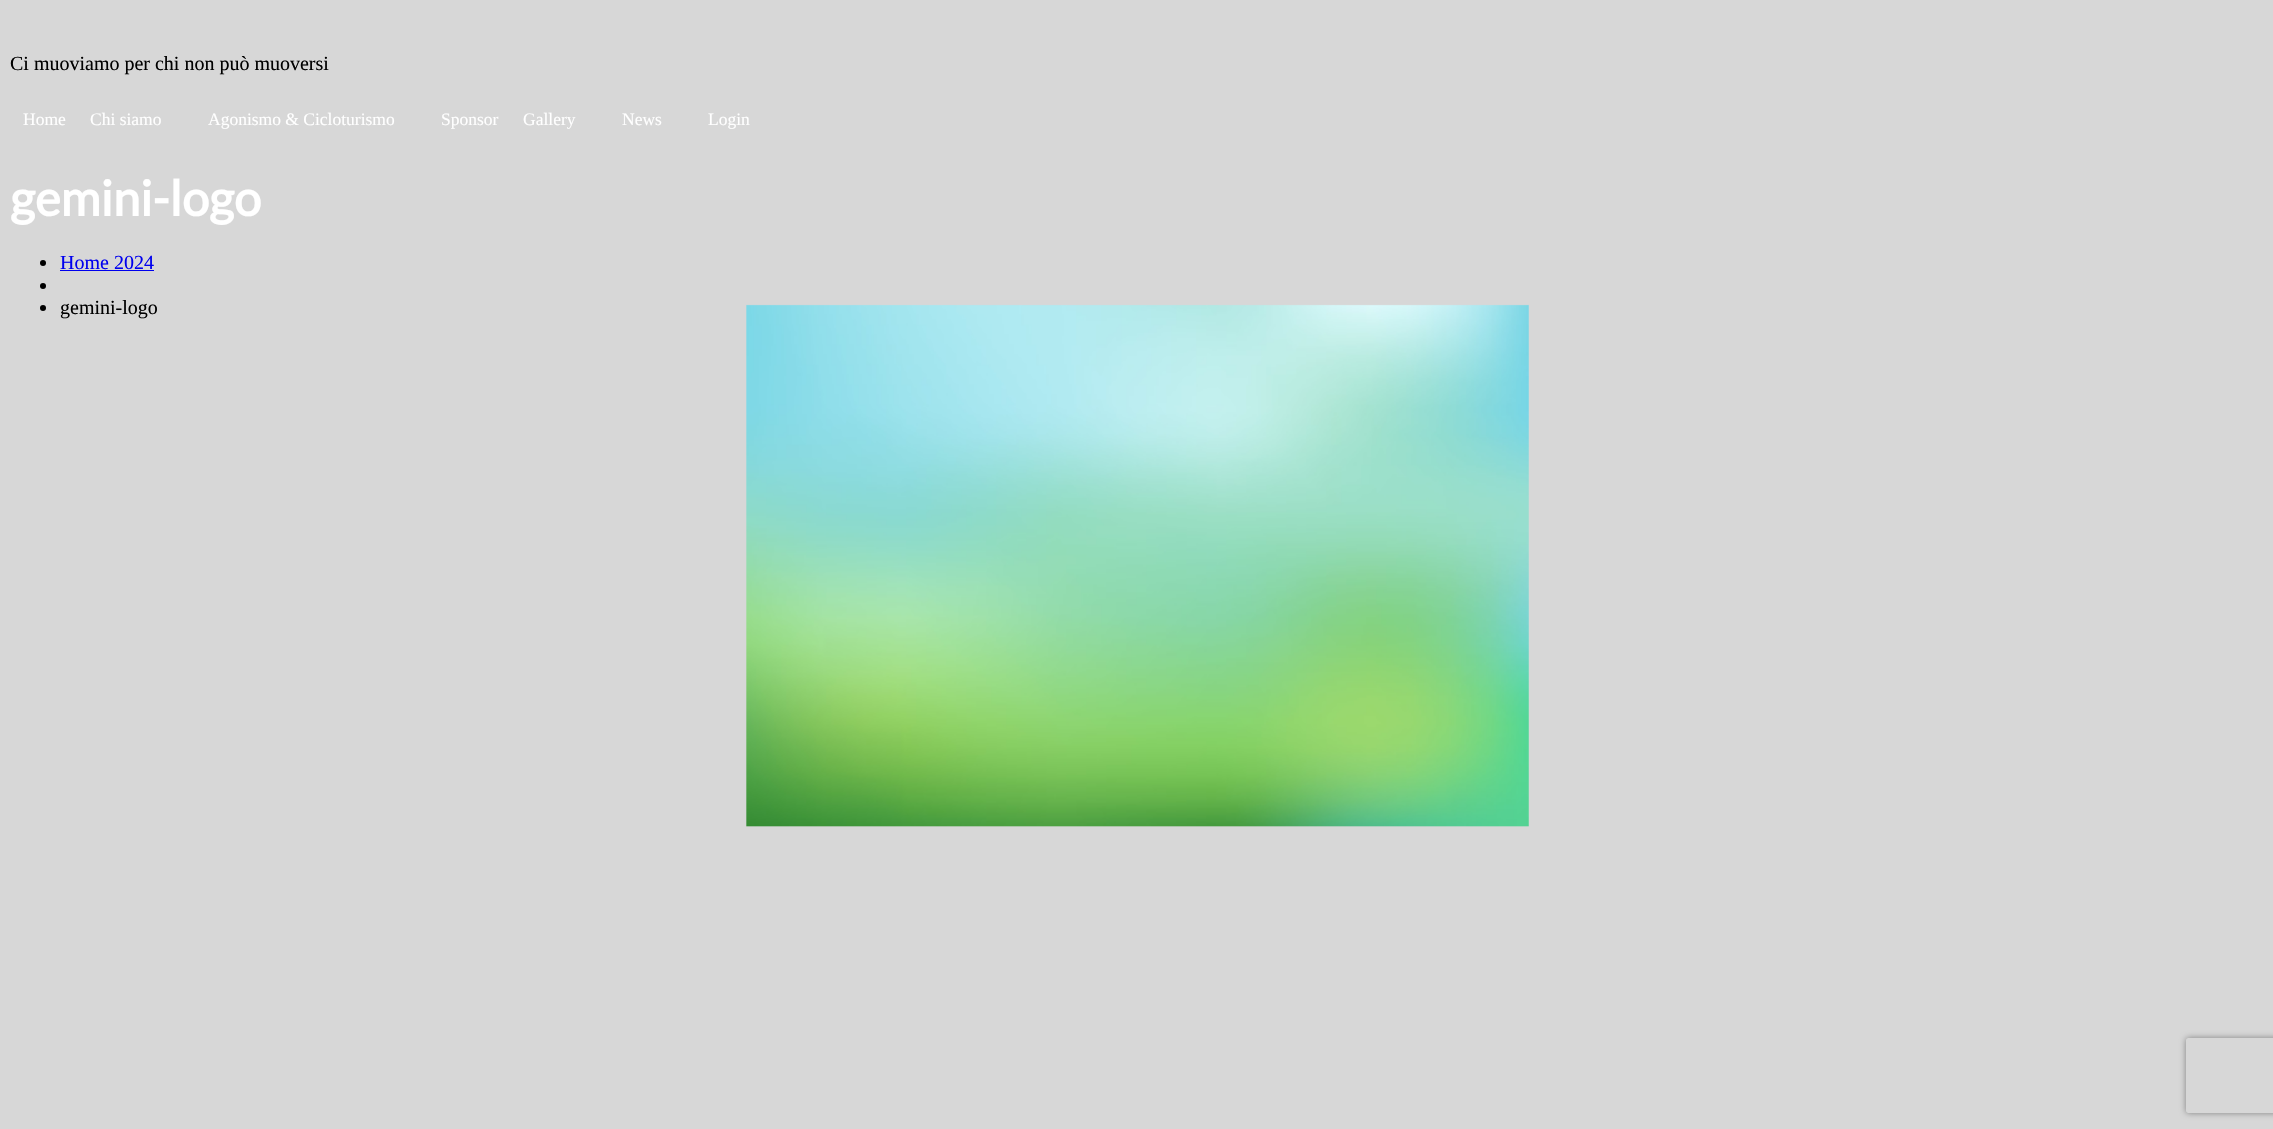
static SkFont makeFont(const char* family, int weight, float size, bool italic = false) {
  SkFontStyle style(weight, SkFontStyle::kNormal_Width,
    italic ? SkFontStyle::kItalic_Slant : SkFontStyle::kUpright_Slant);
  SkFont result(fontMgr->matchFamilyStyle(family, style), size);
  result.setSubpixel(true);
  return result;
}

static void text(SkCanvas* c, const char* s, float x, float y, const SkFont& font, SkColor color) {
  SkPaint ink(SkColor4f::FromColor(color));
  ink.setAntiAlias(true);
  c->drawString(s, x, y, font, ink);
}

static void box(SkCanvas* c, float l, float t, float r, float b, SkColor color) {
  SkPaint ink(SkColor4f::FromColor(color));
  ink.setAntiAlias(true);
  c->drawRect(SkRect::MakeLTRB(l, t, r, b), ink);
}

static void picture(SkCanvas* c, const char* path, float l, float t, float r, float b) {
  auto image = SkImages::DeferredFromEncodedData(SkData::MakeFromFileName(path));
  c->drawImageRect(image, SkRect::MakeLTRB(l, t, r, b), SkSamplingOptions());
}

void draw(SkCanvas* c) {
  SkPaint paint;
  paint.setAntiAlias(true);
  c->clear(0xffd7d7d7);
  picture(c, "img_01.png", 746, 304, 1529, 827);
  SkFont face1 = makeFont("Liberation Serif", 400, 20);
  text(c, "Ci muoviamo per chi non può muoversi", 10, 70, face1, 0xff000000);
  SkFont face2 = makeFont("Liberation Serif", 400, 17.5f);
  text(c, "Home", 23, 125, face2, 0xffffffff);
  text(c, "Chi siamo", 90, 125, face2, 0xffffffff);
  text(c, "Agonismo & Cicloturismo", 208, 125, face2, 0xffffffff);
  text(c, "Sponsor", 441, 125, face2, 0xffffffff);
  text(c, "Gallery", 523, 125, face2, 0xffffffff);
  text(c, "News", 622, 125, face2, 0xffffffff);
  text(c, "Login", 708, 125, face2, 0xffffffff);
  SkFont face3 = makeFont("Lato", 700, 48.75f);
  text(c, "gemini-logo", 10, 216, face3, 0xffffffff);
  paint.setColor(0xff000000);
  c->drawCircle(43, 263, 3, paint);
  text(c, "Home 2024", 60, 269, face1, 0xff0000ee);
  box(c, 60, 270, 154, 271, 0xff0000ee);
  c->drawCircle(43, 286, 3, paint);
  c->drawCircle(43, 308, 3, paint);
  text(c, "gemini-logo", 60, 314, face1, 0xff000000);
  c->save();
  c->clipPath(SkPathBuilder(SkPathFillType::kEvenOdd).moveTo(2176, 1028).lineTo(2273, 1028).lineTo(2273, 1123).lineTo(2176, 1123).close().moveTo(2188.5f, 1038).lineTo(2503.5f, 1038).cubicTo(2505, 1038, 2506, 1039, 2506, 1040.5f).lineTo(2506, 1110.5f).cubicTo(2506, 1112, 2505, 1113, 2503.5f, 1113).lineTo(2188.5f, 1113).cubicTo(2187, 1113, 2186, 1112, 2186, 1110.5f).lineTo(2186, 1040.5f).cubicTo(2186, 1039, 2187, 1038, 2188.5f, 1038).close().detach(), true);
  paint.setColor(0xff808080);
  paint.setMaskFilter(SkMaskFilter::MakeBlur(kNormal_SkBlurStyle, 3));
  c->drawRoundRect(SkRect::MakeLTRB(2186, 1038, 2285, 1113), 2.5f, 2.5f, paint);
  paint.setMaskFilter(nullptr);
  c->restore();
}
